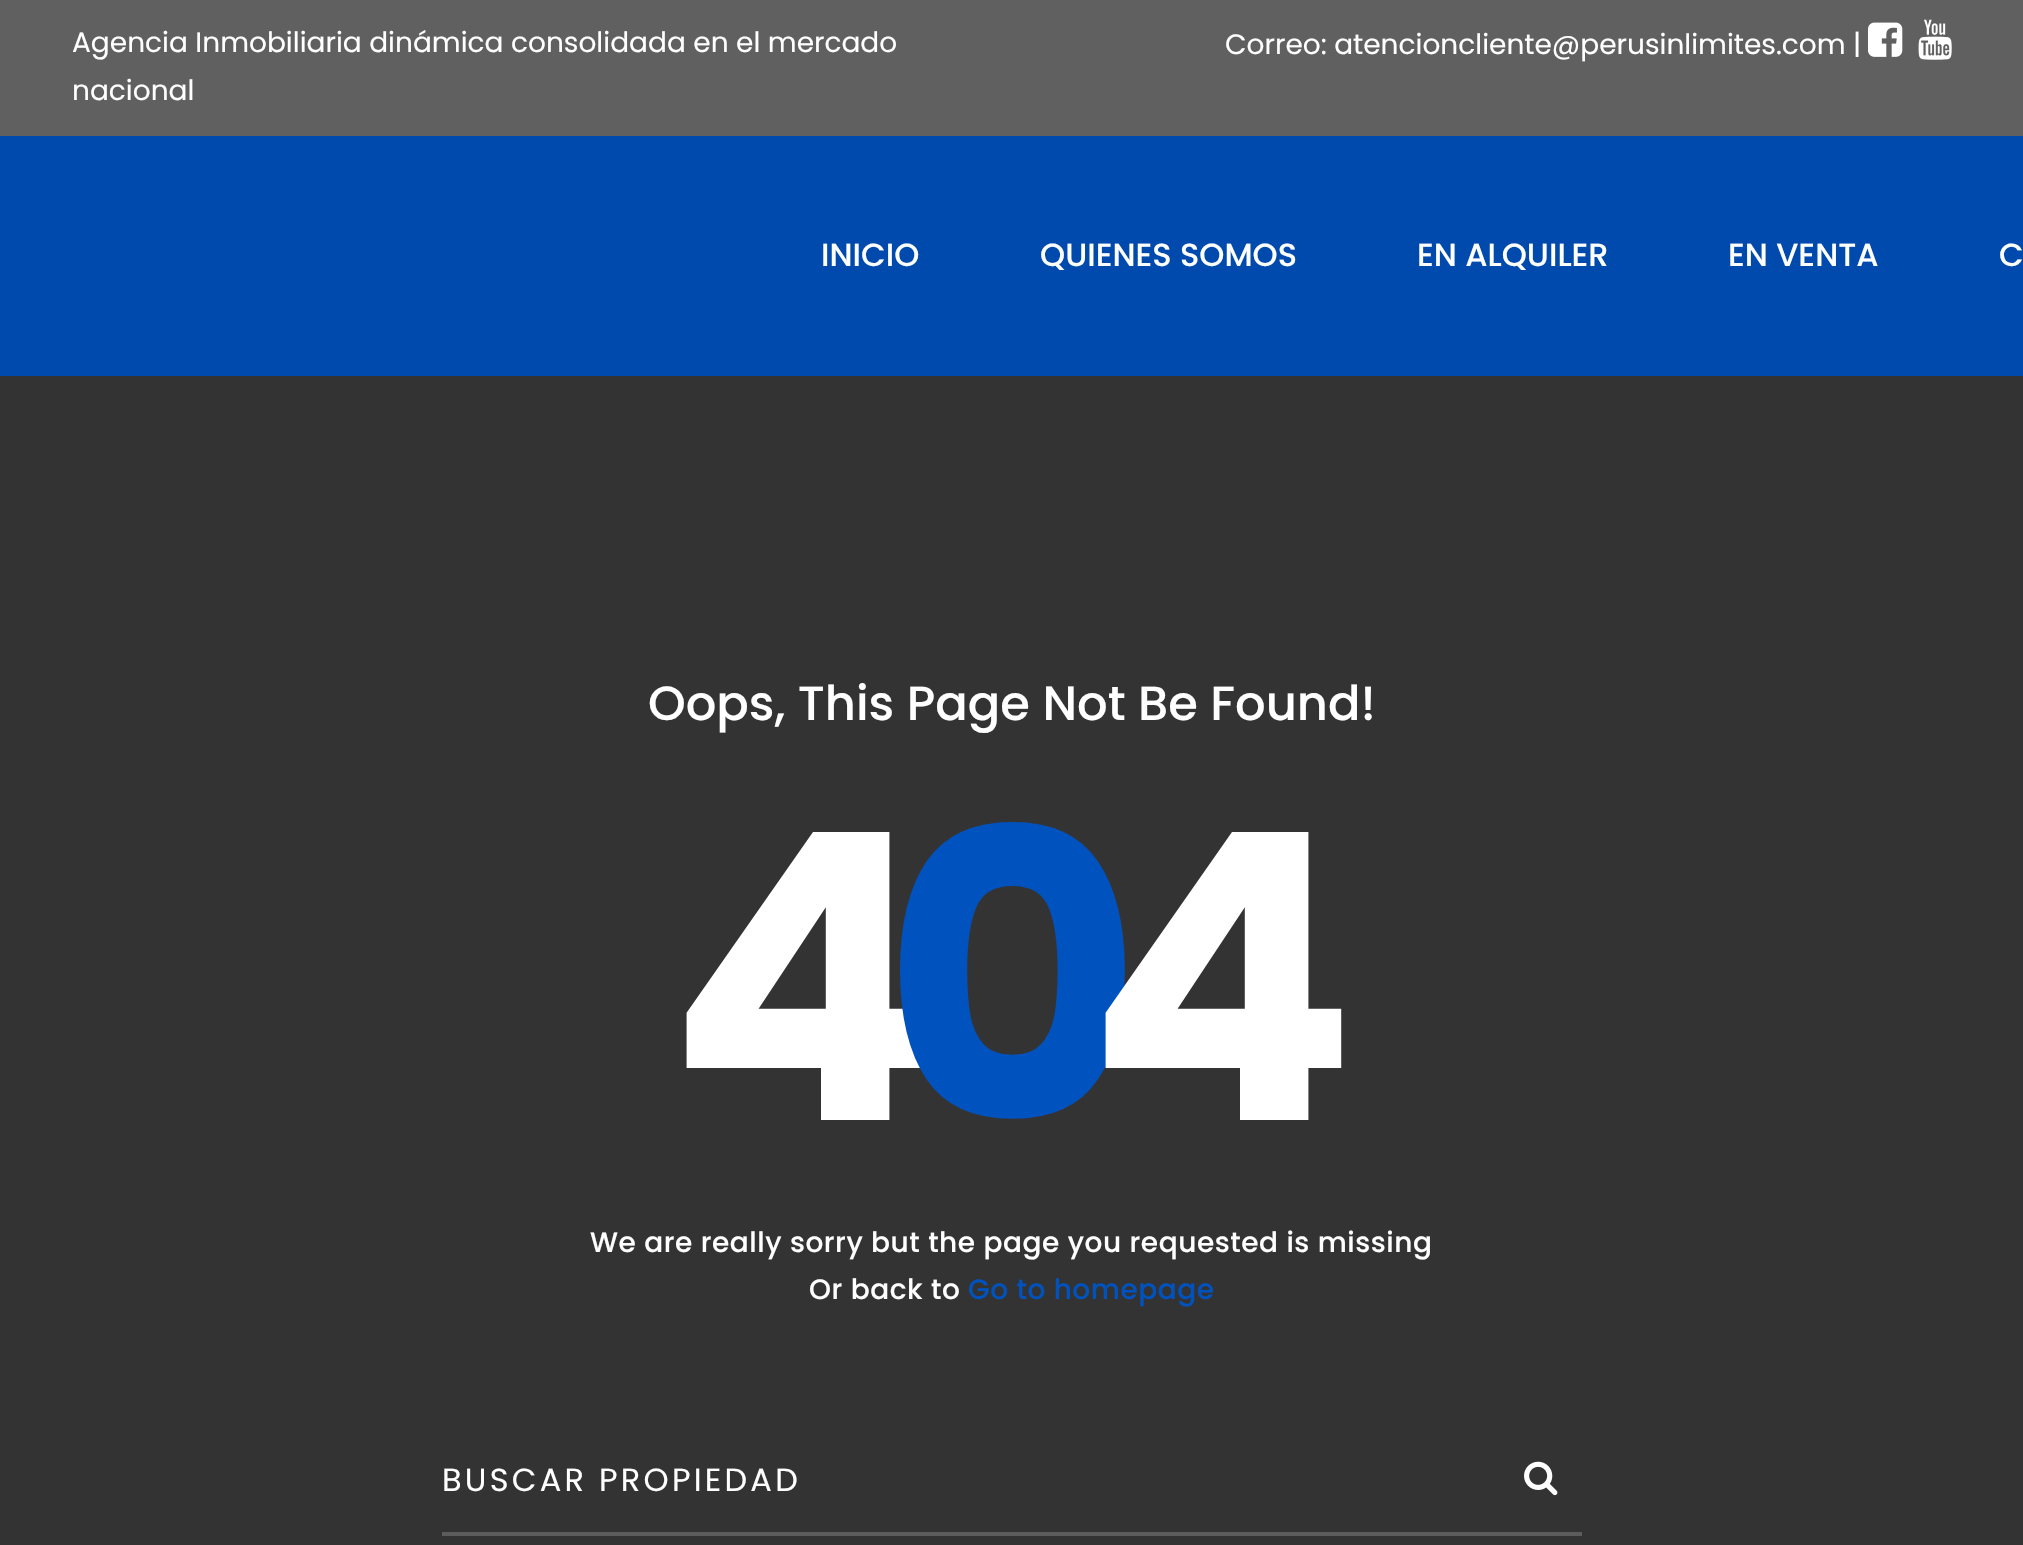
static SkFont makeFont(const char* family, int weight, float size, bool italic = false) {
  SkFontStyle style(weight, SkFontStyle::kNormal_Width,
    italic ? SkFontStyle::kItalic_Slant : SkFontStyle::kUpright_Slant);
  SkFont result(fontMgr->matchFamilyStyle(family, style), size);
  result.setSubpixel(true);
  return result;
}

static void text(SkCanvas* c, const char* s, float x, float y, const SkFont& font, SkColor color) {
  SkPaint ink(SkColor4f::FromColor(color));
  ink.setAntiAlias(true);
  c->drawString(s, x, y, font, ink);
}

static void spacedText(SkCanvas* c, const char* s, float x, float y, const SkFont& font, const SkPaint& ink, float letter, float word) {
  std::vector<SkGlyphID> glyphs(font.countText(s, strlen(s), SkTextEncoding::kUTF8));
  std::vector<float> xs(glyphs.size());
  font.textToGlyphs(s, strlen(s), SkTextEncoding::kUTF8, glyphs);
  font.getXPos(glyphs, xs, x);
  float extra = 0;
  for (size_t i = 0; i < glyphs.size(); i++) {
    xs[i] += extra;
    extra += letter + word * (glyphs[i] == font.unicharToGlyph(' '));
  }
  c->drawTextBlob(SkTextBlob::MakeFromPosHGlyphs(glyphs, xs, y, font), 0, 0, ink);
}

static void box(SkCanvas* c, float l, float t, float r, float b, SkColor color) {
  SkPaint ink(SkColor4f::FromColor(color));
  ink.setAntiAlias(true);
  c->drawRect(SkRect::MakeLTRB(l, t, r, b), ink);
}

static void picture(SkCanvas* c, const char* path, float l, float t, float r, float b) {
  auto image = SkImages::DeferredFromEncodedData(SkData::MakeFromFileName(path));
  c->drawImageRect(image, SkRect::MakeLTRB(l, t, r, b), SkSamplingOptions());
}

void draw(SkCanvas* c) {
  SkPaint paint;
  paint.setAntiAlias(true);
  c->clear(0xff606060);
  SkFont face1 = makeFont("Poppins", 400, 28);
  text(c, "Agencia Inmobiliaria dinámica consolidada en el mercado", 72, 52, face1, 0xffffffff);
  text(c, "nacional", 72, 100, face1, 0xffffffff);
  text(c, "Correo: atencioncliente@perusinlimites.com |", 1225, 54, face1, 0xffffffff);
  picture(c, "img_01.png", 1868, 22, 1903, 57);
  picture(c, "img_02.png", 1918, 19, 1952, 60);
  box(c, 0, 136, 2023, 376, 0xff004aad);
  SkFont face2 = makeFont("Poppins", 500, 32);
  text(c, "INICIO", 821, 266, face2, 0xffffffff);
  text(c, "QUIENES SOMOS", 1040, 266, face2, 0xffffffff);
  text(c, "EN ALQUILER", 1417, 266, face2, 0xffffffff);
  text(c, "EN VENTA", 1728, 266, face2, 0xffffffff);
  text(c, "C", 1999, 266, face2, 0xffffffff);
  box(c, 0, 376, 2023, 1545, 0xff333333);
  SkFont face3 = makeFont("Poppins", 500, 48);
  text(c, "Oops, This Page Not Be Found!", 648, 720, face3, 0xffffffff);
  SkFont face4 = makeFont("Poppins", 700, 400);
  paint.setColor(0xffffffff);
  spacedText(c, "4", 667, 1120, face4, paint, -56, 0);
  paint.setColor(0xff0052bf);
  spacedText(c, "0", 882, 1120, face4, paint, -56, 0);
  paint.setColor(0xffffffff);
  spacedText(c, "4", 1086, 1120, face4, paint, -56, 0);
  SkFont face5 = makeFont("Poppins", 500, 28);
  spacedText(c, "We are really sorry but the page you requested is missing", 590, 1252, face5, paint, 0.55f, 0);
  spacedText(c, "Or back to", 809, 1299, face5, paint, 0.55f, 0);
  paint.setColor(0xff0052bf);
  spacedText(c, "Go to homepage", 968, 1299, face5, paint, 0.55f, 0);
  box(c, 442, 1532, 1582, 1536, 0xff5c5c5c);
  SkFont face6 = makeFont("Poppins", 400, 32);
  paint.setColor(0xffffffff);
  spacedText(c, "BUSCAR PROPIEDAD", 442, 1491, face6, paint, 3.25f, 0);
  picture(c, "img_03.png", 1524, 1461, 1558, 1496);
}
